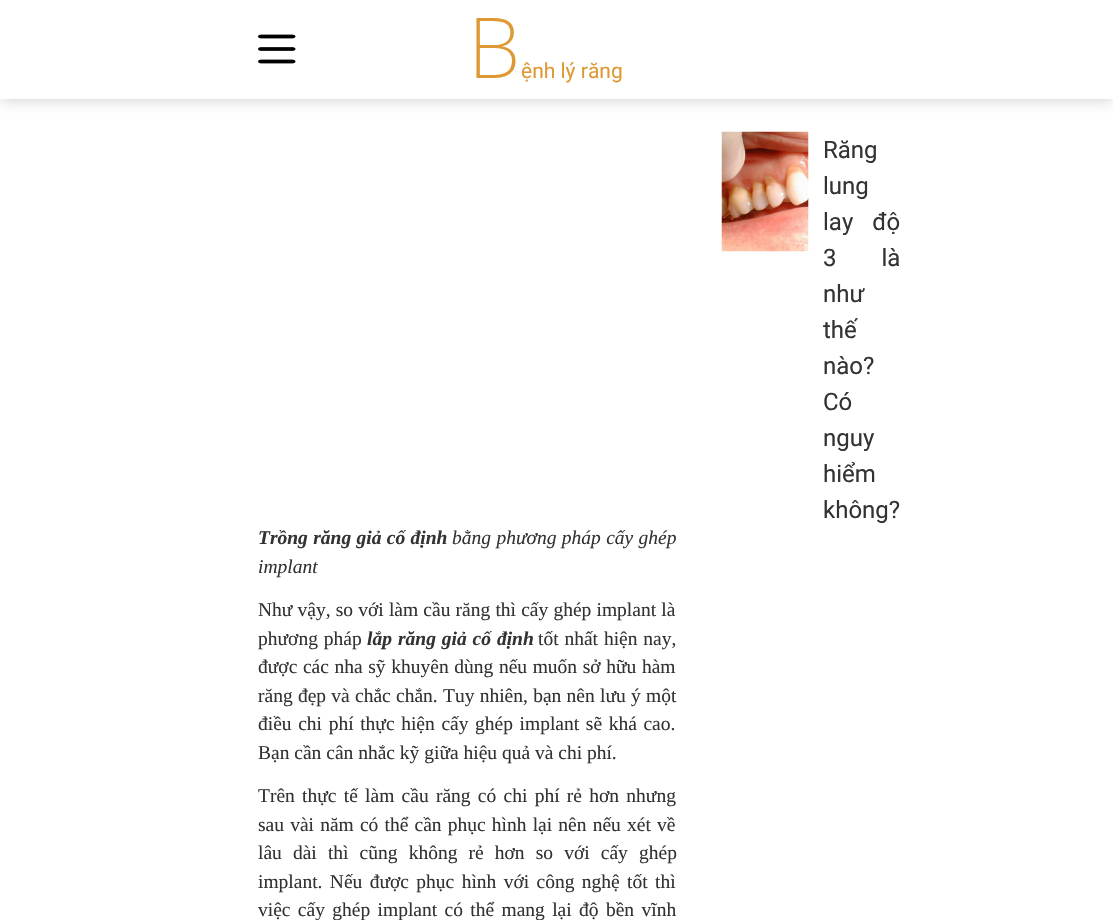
static SkFont makeFont(const char* family, int weight, float size, bool italic = false) {
  SkFontStyle style(weight, SkFontStyle::kNormal_Width,
    italic ? SkFontStyle::kItalic_Slant : SkFontStyle::kUpright_Slant);
  SkFont result(fontMgr->matchFamilyStyle(family, style), size);
  result.setSubpixel(true);
  return result;
}

static void text(SkCanvas* c, const char* s, float x, float y, const SkFont& font, SkColor color) {
  SkPaint ink(SkColor4f::FromColor(color));
  ink.setAntiAlias(true);
  c->drawString(s, x, y, font, ink);
}

static void spacedText(SkCanvas* c, const char* s, float x, float y, const SkFont& font, const SkPaint& ink, float letter, float word) {
  std::vector<SkGlyphID> glyphs(font.countText(s, strlen(s), SkTextEncoding::kUTF8));
  std::vector<float> xs(glyphs.size());
  font.textToGlyphs(s, strlen(s), SkTextEncoding::kUTF8, glyphs);
  font.getXPos(glyphs, xs, x);
  float extra = 0;
  for (size_t i = 0; i < glyphs.size(); i++) {
    xs[i] += extra;
    extra += letter + word * (glyphs[i] == font.unicharToGlyph(' '));
  }
  c->drawTextBlob(SkTextBlob::MakeFromPosHGlyphs(glyphs, xs, y, font), 0, 0, ink);
}

static void box(SkCanvas* c, float l, float t, float r, float b, SkColor color) {
  SkPaint ink(SkColor4f::FromColor(color));
  ink.setAntiAlias(true);
  c->drawRect(SkRect::MakeLTRB(l, t, r, b), ink);
}

static void picture(SkCanvas* c, const char* path, float l, float t, float r, float b) {
  auto image = SkImages::DeferredFromEncodedData(SkData::MakeFromFileName(path));
  c->drawImageRect(image, SkRect::MakeLTRB(l, t, r, b), SkSamplingOptions());
}

void draw(SkCanvas* c) {
  SkPaint paint;
  paint.setAntiAlias(true);
  c->clear(0xffffffff);
  paint.setColor(0x33000000);
  paint.setMaskFilter(SkMaskFilter::MakeBlur(kNormal_SkBlurStyle, 7.5f));
  c->drawRect(SkRect::MakeLTRB(0, 0, 1113, 99), paint);
  paint.setMaskFilter(nullptr);
  box(c, 0, 0, 1113, 99, 0xffffffff);
  picture(c, "img_01.png", 258, 34, 296, 64);
  SkFont face1 = makeFont("Noto Sans", 200, 84);
  text(c, "B", 468, 78, face1, 0xffdd9933);
  SkFont face2 = makeFont("Roboto", 400, 21);
  text(c, "ệnh lý răng", 521, 78, face2, 0xffdd9933);
  picture(c, "img_02.png", 721, 131, 809, 252);
  SkFont face3 = makeFont("Roboto", 400, 24);
  text(c, "Răng", 823, 158, face3, 0xff333333);
  text(c, "lung", 823, 194, face3, 0xff333333);
  paint.setColor(0xff333333);
  spacedText(c, "lay độ", 823, 230, face3, paint, 0, 13);
  spacedText(c, "3 là", 823, 266, face3, paint, 0, 39);
  text(c, "như", 823, 302, face3, 0xff333333);
  text(c, "thế", 823, 338, face3, 0xff333333);
  text(c, "nào?", 823, 374, face3, 0xff333333);
  text(c, "Có", 823, 410, face3, 0xff333333);
  text(c, "nguy", 823, 446, face3, 0xff333333);
  text(c, "hiểm", 823, 482, face3, 0xff333333);
  text(c, "không?", 823, 518, face3, 0xff333333);
  SkFont face4 = makeFont("Liberation Serif", 700, 19.5f, true);
  spacedText(c, "Trồng răng giả cố định", 258, 544, face4, paint, 0, 0.5f);
  SkFont face5 = makeFont("Liberation Serif", 400, 19.5f, true);
  spacedText(c, "bằng phương pháp cấy ghép", 452, 544, face5, paint, 0, 0.5f);
  text(c, "implant", 258, 573, face5, 0xff333333);
  SkFont face6 = makeFont("Liberation Serif", 400, 19.5f);
  spacedText(c, "Như vậy, so với làm cầu răng thì cấy ghép implant là", 258, 616, face6, paint, 0, 0.3f);
  spacedText(c, "phương pháp", 258, 645, face6, paint, 0, 1);
  text(c, "lắp", 367, 645, face4, 0xff333333);
  spacedText(c, "răng giả cố định", 398, 645, face4, paint, 0, 1);
  spacedText(c, "tốt nhất hiện nay,", 538, 645, face6, paint, 0, 1);
  spacedText(c, "được các nha sỹ khuyên dùng nếu muốn sở hữu hàm", 258, 673, face6, paint, 0, 0.75f);
  spacedText(c, "răng đẹp và chắc chắn. Tuy nhiên, bạn nên lưu ý một", 258, 702, face6, paint, 0, 0.4f);
  spacedText(c, "điều chi phí thực hiện cấy ghép implant sẽ khá cao.", 258, 730, face6, paint, 0, 1.75f);
  text(c, "Bạn cần cân nhắc kỹ giữa hiệu quả và chi phí.", 258, 759, face6, 0xff333333);
  spacedText(c, "Trên thực tế làm cầu răng có chi phí rẻ hơn nhưng", 258, 802, face6, paint, 0, 2.4f);
  spacedText(c, "sau vài năm có thể cần phục hình lại nên nếu xét về", 258, 831, face6, paint, 0, 1.3f);
  spacedText(c, "lâu dài thì cũng không rẻ hơn so với cấy ghép", 258, 859, face6, paint, 0, 6.25f);
  spacedText(c, "implant. Nếu được phục hình với công nghệ tốt thì", 258, 888, face6, paint, 0, 2.5f);
  spacedText(c, "việc cấy ghép implant có thể mang lại độ bền vĩnh", 258, 916, face6, paint, 0, 2.5f);
}
